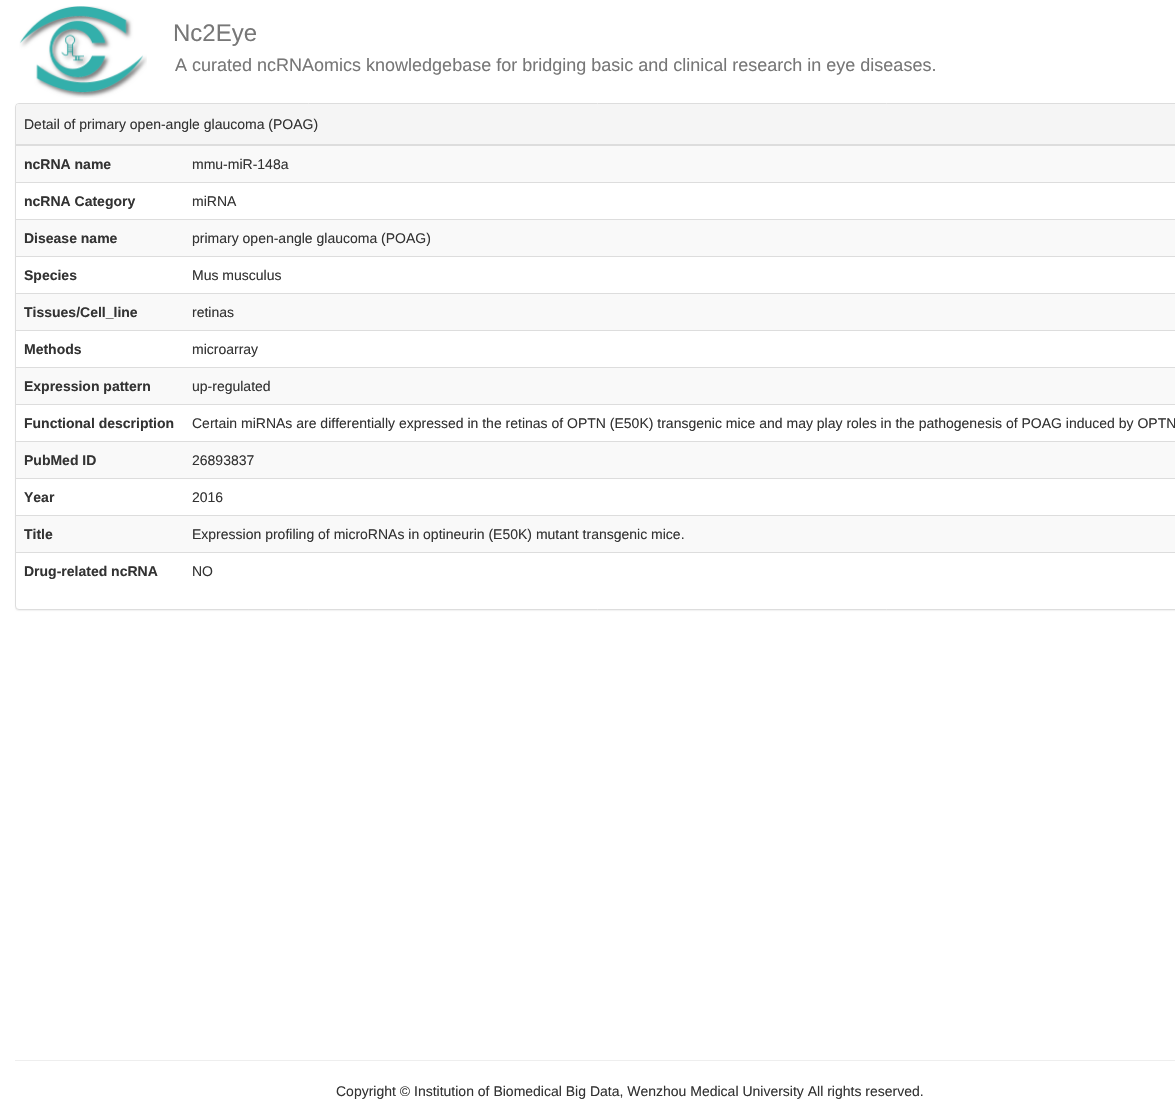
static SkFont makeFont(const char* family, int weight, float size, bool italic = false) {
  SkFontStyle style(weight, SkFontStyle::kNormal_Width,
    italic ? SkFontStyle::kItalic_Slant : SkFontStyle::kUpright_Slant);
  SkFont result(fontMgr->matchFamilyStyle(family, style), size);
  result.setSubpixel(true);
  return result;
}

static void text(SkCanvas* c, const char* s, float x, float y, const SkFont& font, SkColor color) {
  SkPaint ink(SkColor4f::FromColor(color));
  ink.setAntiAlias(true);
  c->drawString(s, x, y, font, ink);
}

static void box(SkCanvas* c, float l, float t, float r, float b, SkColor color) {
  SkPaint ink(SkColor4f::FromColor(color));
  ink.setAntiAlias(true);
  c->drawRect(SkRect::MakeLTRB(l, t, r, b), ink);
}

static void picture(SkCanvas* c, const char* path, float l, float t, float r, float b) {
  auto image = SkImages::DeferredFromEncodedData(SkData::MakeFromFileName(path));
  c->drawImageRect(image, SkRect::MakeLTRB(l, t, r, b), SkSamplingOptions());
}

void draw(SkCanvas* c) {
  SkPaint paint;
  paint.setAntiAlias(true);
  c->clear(0xffffffff);
  picture(c, "img_01.png", 19, 6, 147, 98);
  SkFont face1 = makeFont("Liberation Sans", 400, 24);
  text(c, "Nc2Eye", 173, 41, face1, 0xff777777);
  SkFont face2 = makeFont("Liberation Sans", 400, 18);
  text(c, "A curated ncRNAomics knowledgebase for bridging basic and clinical research in eye diseases.", 175, 71, face2, 0xff777777);
  paint.setColor(0x0d000000);
  paint.setMaskFilter(SkMaskFilter::MakeBlur(kNormal_SkBlurStyle, 0.5f));
  c->drawRoundRect(SkRect::MakeLTRB(15, 104, 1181, 611), 4, 4, paint);
  paint.setMaskFilter(nullptr);
  paint.setColor(0xffffffff);
  c->drawRoundRect(SkRect::MakeLTRB(15.5f, 103.5f, 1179.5f, 609.5f), 3.5f, 3.5f, paint);
  paint.setStyle(SkPaint::kStroke_Style);
  paint.setStrokeWidth(1);
  paint.setColor(0xffdddddd);
  c->drawRoundRect(SkRect::MakeLTRB(15.5f, 103.5f, 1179.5f, 609.5f), 3.5f, 3.5f, paint);
  paint.setStyle(SkPaint::kFill_Style);
  paint.setColor(0xfff5f5f5);
  c->drawPath(SkPathBuilder().moveTo(19, 104).lineTo(1175, 104).cubicTo(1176.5f, 104, 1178, 105.5f, 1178, 107).lineTo(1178, 145).lineTo(16, 145).lineTo(16, 107).cubicTo(16, 105.5f, 17.5f, 104, 19, 104).close().detach(), paint);
  box(c, 16, 144, 1175, 145, 0xffdddddd);
  SkFont face3 = makeFont("Liberation Sans", 400, 14);
  text(c, "Detail of primary open-angle glaucoma (POAG)", 24, 129, face3, 0xff333333);
  box(c, 16, 146, 1175, 182, 0xfff9f9f9);
  SkFont face4 = makeFont("Liberation Sans", 700, 14);
  text(c, "ncRNA name", 24, 169, face4, 0xff333333);
  box(c, 16, 145, 1175, 146, 0xffdddddd);
  text(c, "mmu-miR-148a", 192, 169, face3, 0xff333333);
  text(c, "ncRNA Category", 24, 206, face4, 0xff333333);
  box(c, 16, 182, 1175, 183, 0xffdddddd);
  text(c, "miRNA", 192, 206, face3, 0xff333333);
  box(c, 16, 220, 1175, 256, 0xfff9f9f9);
  text(c, "Disease name", 24, 243, face4, 0xff333333);
  box(c, 16, 219, 1175, 220, 0xffdddddd);
  text(c, "primary open-angle glaucoma (POAG)", 192, 243, face3, 0xff333333);
  text(c, "Species", 24, 280, face4, 0xff333333);
  box(c, 16, 256, 1175, 257, 0xffdddddd);
  text(c, "Mus musculus", 192, 280, face3, 0xff333333);
  box(c, 16, 294, 1175, 330, 0xfff9f9f9);
  text(c, "Tissues/Cell_line", 24, 317, face4, 0xff333333);
  box(c, 16, 293, 1175, 294, 0xffdddddd);
  text(c, "retinas", 192, 317, face3, 0xff333333);
  text(c, "Methods", 24, 354, face4, 0xff333333);
  box(c, 16, 330, 1175, 331, 0xffdddddd);
  text(c, "microarray", 192, 354, face3, 0xff333333);
  box(c, 16, 368, 1175, 404, 0xfff9f9f9);
  text(c, "Expression pattern", 24, 391, face4, 0xff333333);
  box(c, 16, 367, 1175, 368, 0xffdddddd);
  text(c, "up-regulated", 192, 391, face3, 0xff333333);
  text(c, "Functional description", 24, 428, face4, 0xff333333);
  box(c, 16, 404, 1175, 405, 0xffdddddd);
  text(c, "Certain miRNAs are differentially expressed in the retinas of OPTN (E50K) transgenic mice and may play roles in the pathogenesis of POAG induced by OPTN", 192, 428, face3, 0xff333333);
  box(c, 16, 442, 1175, 478, 0xfff9f9f9);
  text(c, "PubMed ID", 24, 465, face4, 0xff333333);
  box(c, 16, 441, 1175, 442, 0xffdddddd);
  text(c, "26893837", 192, 465, face3, 0xff333333);
  text(c, "Year", 24, 502, face4, 0xff333333);
  box(c, 16, 478, 1175, 479, 0xffdddddd);
  text(c, "2016", 192, 502, face3, 0xff333333);
  box(c, 16, 516, 1175, 552, 0xfff9f9f9);
  text(c, "Title", 24, 539, face4, 0xff333333);
  box(c, 16, 515, 1175, 516, 0xffdddddd);
  text(c, "Expression profiling of microRNAs in optineurin (E50K) mutant transgenic mice.", 192, 539, face3, 0xff333333);
  text(c, "Drug-related ncRNA", 24, 576, face4, 0xff333333);
  box(c, 16, 552, 1175, 553, 0xffdddddd);
  text(c, "NO", 192, 576, face3, 0xff333333);
  box(c, 15, 1060, 1175, 1061, 0xffeeeeee);
  text(c, "Copyright © Institution of Biomedical Big Data, Wenzhou Medical University All rights reserved.", 336, 1096, face3, 0xff333333);
}
